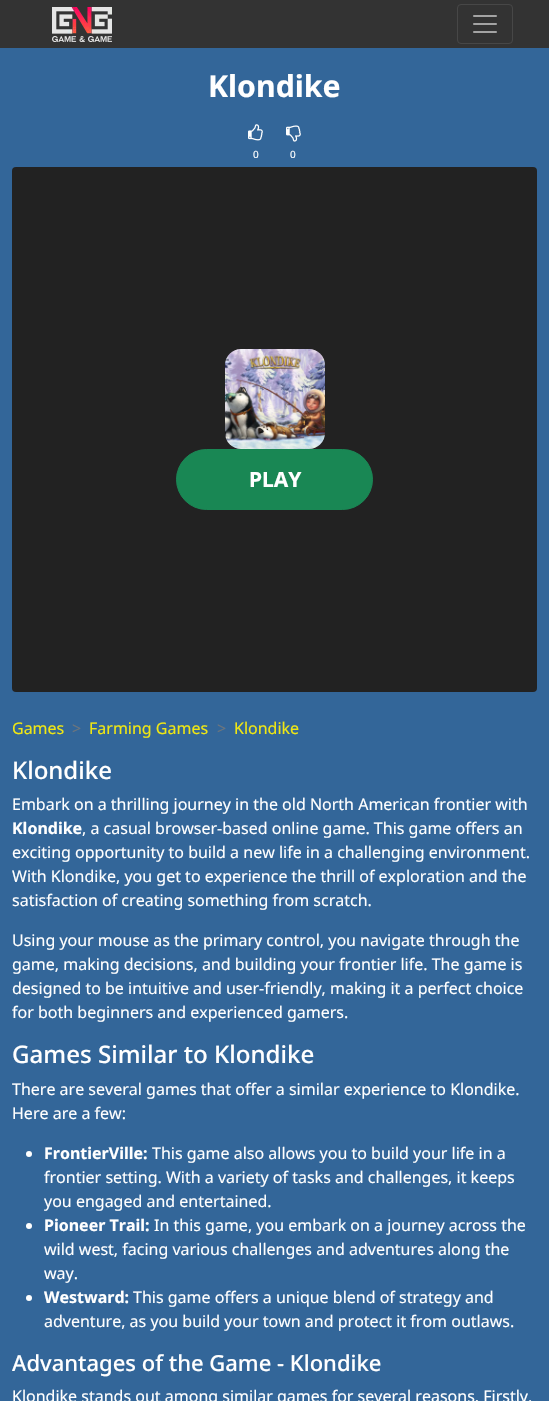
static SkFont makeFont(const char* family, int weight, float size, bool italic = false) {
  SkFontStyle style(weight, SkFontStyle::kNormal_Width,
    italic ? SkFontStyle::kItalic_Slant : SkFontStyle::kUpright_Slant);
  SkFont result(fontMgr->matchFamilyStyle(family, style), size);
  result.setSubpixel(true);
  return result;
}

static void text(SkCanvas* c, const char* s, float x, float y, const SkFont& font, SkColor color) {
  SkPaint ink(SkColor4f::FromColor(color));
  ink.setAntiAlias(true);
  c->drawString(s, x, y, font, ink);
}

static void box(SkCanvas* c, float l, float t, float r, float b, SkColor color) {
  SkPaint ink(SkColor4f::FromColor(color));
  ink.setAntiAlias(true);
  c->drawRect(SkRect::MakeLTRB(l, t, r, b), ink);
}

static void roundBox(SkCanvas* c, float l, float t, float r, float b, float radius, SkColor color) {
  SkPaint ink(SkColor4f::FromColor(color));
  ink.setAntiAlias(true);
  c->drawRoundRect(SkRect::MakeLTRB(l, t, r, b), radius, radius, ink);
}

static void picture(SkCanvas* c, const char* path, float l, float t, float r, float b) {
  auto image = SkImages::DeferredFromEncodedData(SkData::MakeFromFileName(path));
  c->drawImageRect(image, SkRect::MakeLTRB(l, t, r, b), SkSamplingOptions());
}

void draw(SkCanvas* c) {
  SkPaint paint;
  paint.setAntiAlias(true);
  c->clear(0xff336699);
  box(c, 0, 0, 549, 48, 0xff333333);
  picture(c, "img_01.png", 52, 7, 112, 42);
  paint.setStyle(SkPaint::kStroke_Style);
  paint.setStrokeWidth(1);
  paint.setColor(0xff474747);
  c->drawRoundRect(SkRect::MakeLTRB(457.5f, 4.5f, 512.5f, 43.5f), 3.5f, 3.5f, paint);
  picture(c, "img_02.png", 473, 15, 497, 33);
  SkFont face1 = makeFont("Noto Sans", 700, 30.25f);
  text(c, "Klondike", 208, 97, face1, 0xffffffff);
  picture(c, "img_03.png", 248, 124, 263, 141);
  SkFont face2 = makeFont("Noto Sans", 400, 10);
  text(c, "0", 253, 158, face2, 0xffffffff);
  picture(c, "img_04.png", 286, 125, 301, 142);
  text(c, "0", 290, 158, face2, 0xffffffff);
  roundBox(c, 12, 167, 537, 692, 4, 0xff222222);
  picture(c, "img_05.png", 225, 349, 325, 449);
  paint.setStyle(SkPaint::kFill_Style);
  paint.setColor(0xff198754);
  c->drawRoundRect(SkRect::MakeLTRB(176.5f, 449.5f, 372.5f, 509.5f), 30, 30, paint);
  paint.setStyle(SkPaint::kStroke_Style);
  c->drawRoundRect(SkRect::MakeLTRB(176.5f, 449.5f, 372.5f, 509.5f), 30, 30, paint);
  SkFont face3 = makeFont("Noto Sans", 700, 21);
  text(c, "PLAY", 249, 487, face3, 0xffffffff);
  SkFont face4 = makeFont("Noto Sans", 400, 16);
  text(c, "Games", 12, 734, face4, 0xfff0e713);
  text(c, ">", 72, 734, face4, 0xff6c757d);
  text(c, "Farming Games", 89, 734, face4, 0xfff0e713);
  text(c, ">", 217, 734, face4, 0xff6c757d);
  text(c, "Klondike", 234, 734, face4, 0xfff0e713);
  SkFont face5 = makeFont("Noto Sans", 500, 24);
  text(c, "Klondike", 12, 779, face5, 0xffffffff);
  text(c, "Embark on a thrilling journey in the old North American frontier with", 12, 810, face4, 0xffffffff);
  SkFont face6 = makeFont("Noto Sans", 700, 16);
  text(c, "Klondike", 12, 834, face6, 0xffffffff);
  text(c, ", a casual browser-based online game. This game offers an", 82, 834, face4, 0xffffffff);
  text(c, "exciting opportunity to build a new life in a challenging environment.", 12, 858, face4, 0xffffffff);
  text(c, "With Klondike, you get to experience the thrill of exploration and the", 12, 882, face4, 0xffffffff);
  text(c, "satisfaction of creating something from scratch.", 12, 906, face4, 0xffffffff);
  text(c, "Using your mouse as the primary control, you navigate through the", 12, 946, face4, 0xffffffff);
  text(c, "game, making decisions, and building your frontier life. The game is", 12, 970, face4, 0xffffffff);
  text(c, "designed to be intuitive and user-friendly, making it a perfect choice", 12, 994, face4, 0xffffffff);
  text(c, "for both beginners and experienced gamers.", 12, 1018, face4, 0xffffffff);
  SkFont face7 = makeFont("Noto Sans", 500, 24.1f);
  text(c, "Games Similar to Klondike", 12, 1063, face7, 0xffffffff);
  text(c, "There are several games that offer a similar experience to Klondike.", 12, 1095, face4, 0xffffffff);
  text(c, "Here are a few:", 12, 1119, face4, 0xffffffff);
  paint.setStyle(SkPaint::kFill_Style);
  paint.setColor(0xffffffff);
  c->drawCircle(29, 1154, 3, paint);
  text(c, "FrontierVille:", 44, 1159, face6, 0xffffffff);
  text(c, "This game also allows you to build your life in a", 152, 1159, face4, 0xffffffff);
  text(c, "frontier setting. With a variety of tasks and challenges, it keeps", 44, 1183, face4, 0xffffffff);
  text(c, "you engaged and entertained.", 44, 1207, face4, 0xffffffff);
  c->drawCircle(29, 1226, 3, paint);
  text(c, "Pioneer Trail:", 44, 1231, face6, 0xffffffff);
  text(c, "In this game, you embark on a journey across the", 154, 1231, face4, 0xffffffff);
  text(c, "wild west, facing various challenges and adventures along the", 44, 1255, face4, 0xffffffff);
  text(c, "way.", 44, 1279, face4, 0xffffffff);
  c->drawCircle(29, 1298, 3, paint);
  text(c, "Westward:", 44, 1303, face6, 0xffffffff);
  text(c, "This game offers a unique blend of strategy and", 133, 1303, face4, 0xffffffff);
  text(c, "adventure, as you build your town and protect it from outlaws.", 44, 1327, face4, 0xffffffff);
  SkFont face8 = makeFont("Noto Sans", 500, 22);
  text(c, "Advantages of the Game - Klondike", 12, 1371, face8, 0xffffffff);
  text(c, "Klondike stands out among similar games for several reasons. Firstly,", 12, 1402, face4, 0xffffffff);
}
